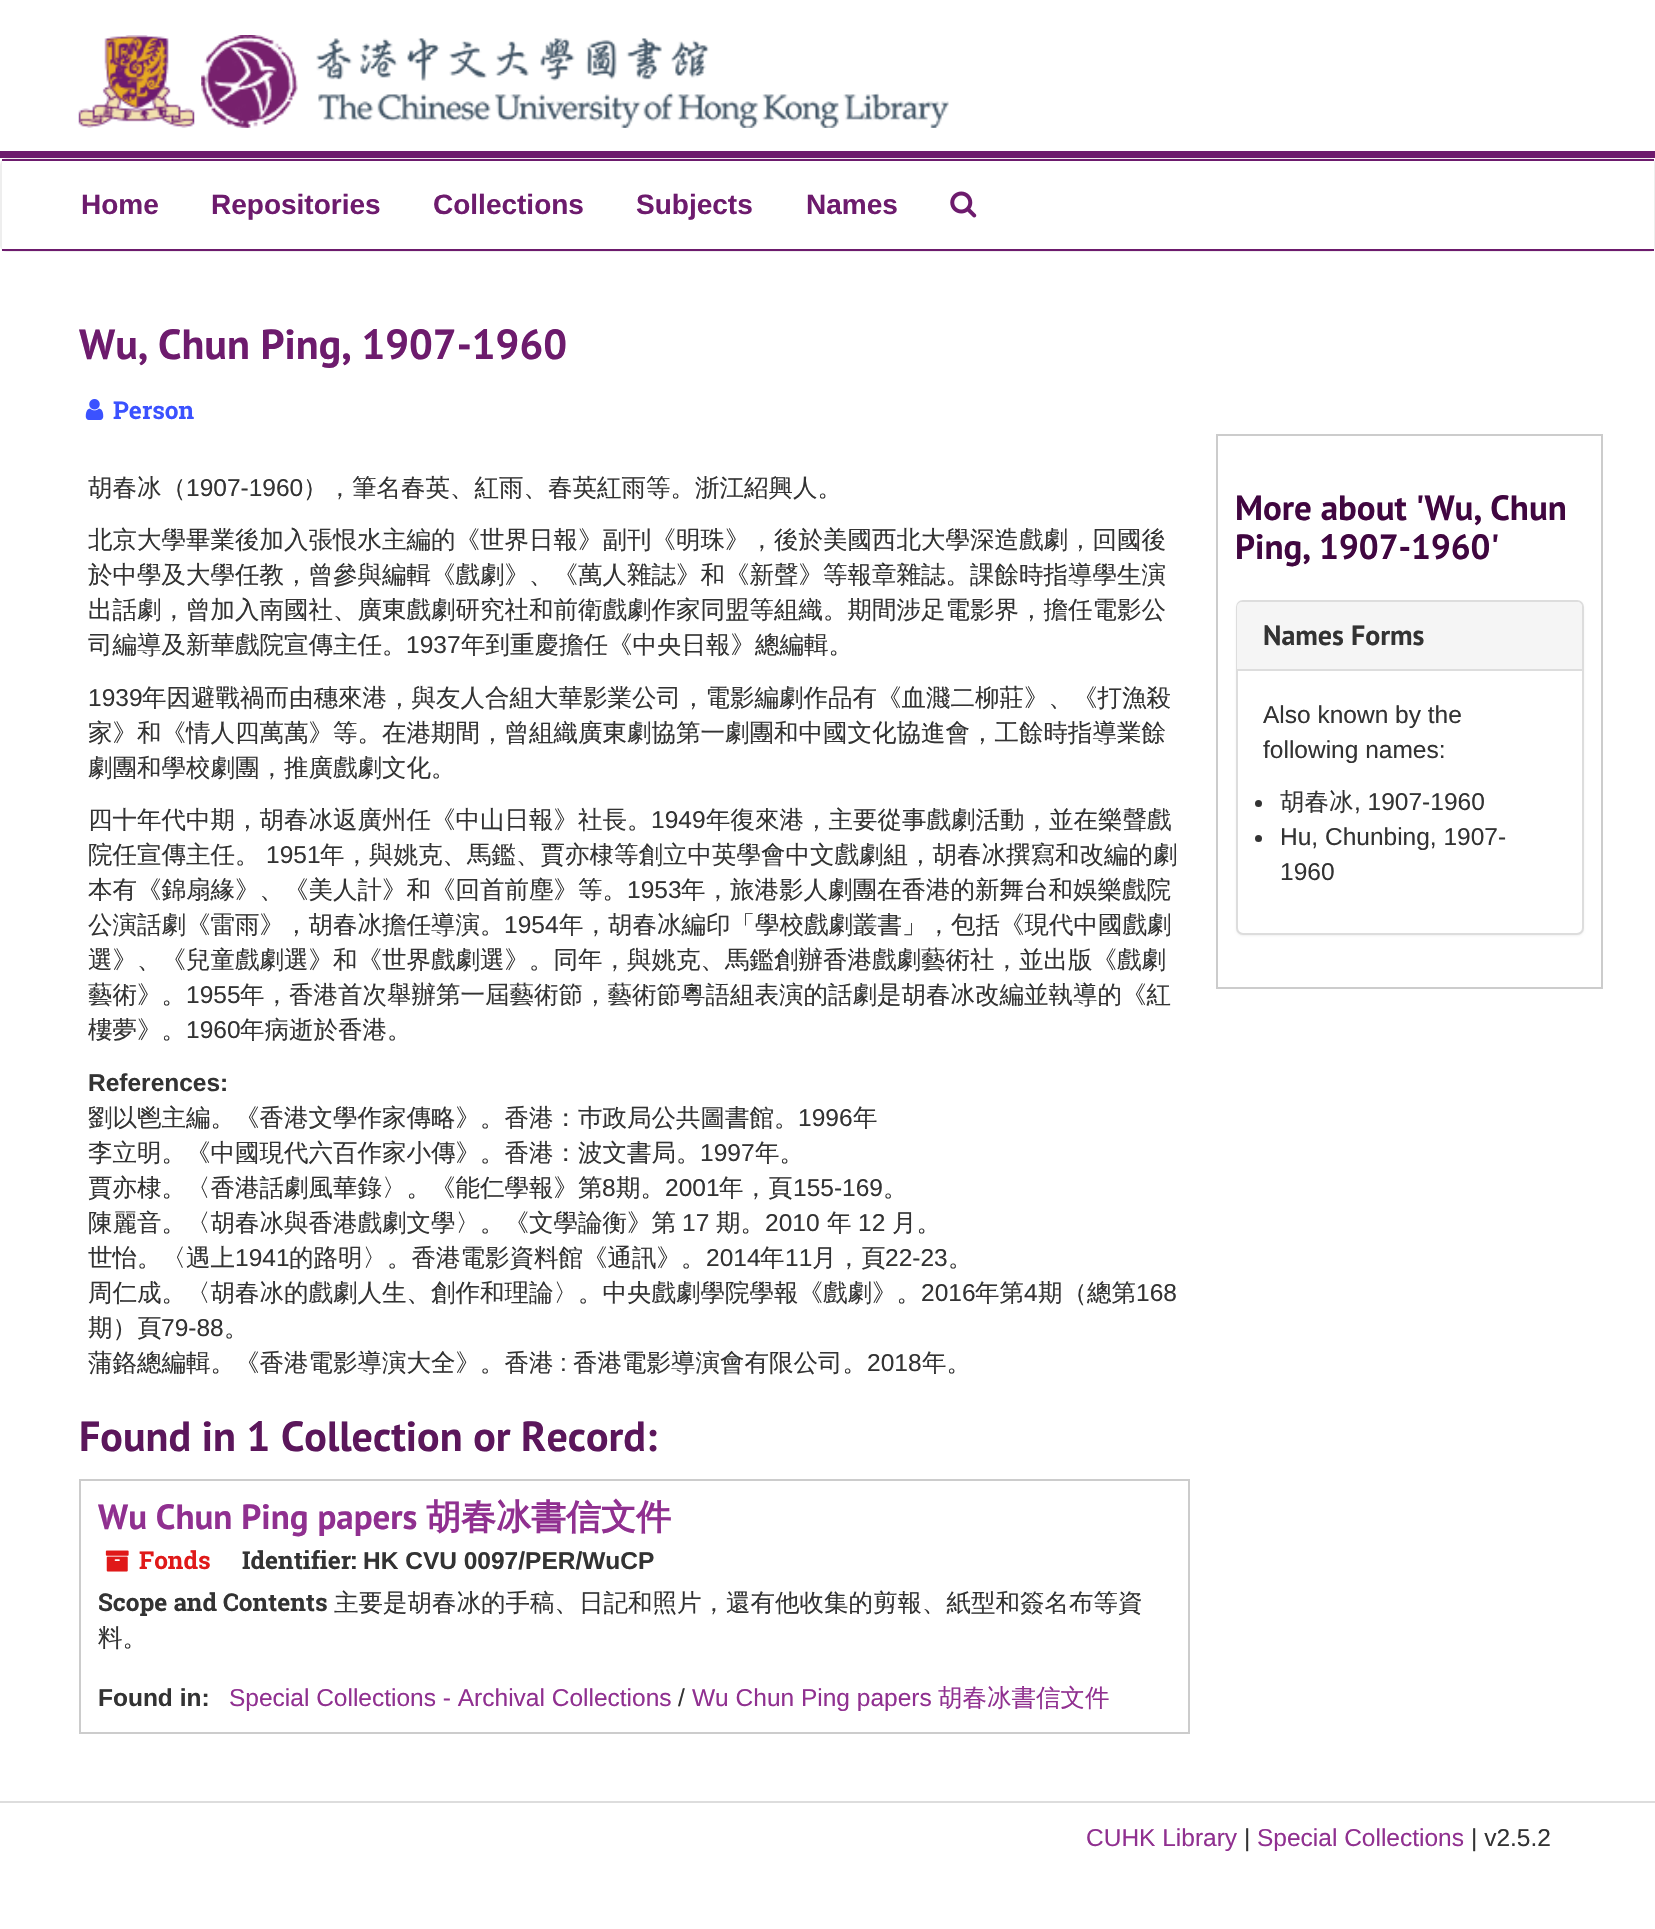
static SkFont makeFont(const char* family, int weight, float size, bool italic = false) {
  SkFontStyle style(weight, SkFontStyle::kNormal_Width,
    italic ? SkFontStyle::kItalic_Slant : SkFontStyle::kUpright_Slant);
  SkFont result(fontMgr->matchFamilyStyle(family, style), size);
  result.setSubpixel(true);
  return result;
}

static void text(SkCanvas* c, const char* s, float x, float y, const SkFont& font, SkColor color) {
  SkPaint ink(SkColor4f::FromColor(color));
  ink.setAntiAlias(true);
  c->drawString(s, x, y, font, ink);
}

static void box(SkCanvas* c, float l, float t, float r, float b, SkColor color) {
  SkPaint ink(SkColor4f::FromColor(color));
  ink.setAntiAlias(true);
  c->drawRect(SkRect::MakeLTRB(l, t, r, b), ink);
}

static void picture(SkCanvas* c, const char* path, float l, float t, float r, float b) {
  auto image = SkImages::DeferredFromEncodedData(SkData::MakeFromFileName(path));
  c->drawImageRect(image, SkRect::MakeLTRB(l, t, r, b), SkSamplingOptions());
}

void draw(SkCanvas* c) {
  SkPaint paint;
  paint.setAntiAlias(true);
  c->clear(0xffffffff);
  box(c, 0, 151, 1655, 158, 0xff6d1b6d);
  picture(c, "img_01.png", 78, 35, 195, 128);
  picture(c, "img_02.png", 201, 35, 949, 128);
  paint.setStyle(SkPaint::kStroke_Style);
  paint.setStrokeWidth(2);
  paint.setColor(0xffeeeeee);
  c->drawRoundRect(SkRect::MakeLTRB(1, 159, 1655, 251), 6, 6, paint);
  box(c, 2, 161, 1654, 249, 0xffffffff);
  box(c, 2, 159, 1654, 161, 0xff6d1b6d);
  box(c, 2, 249, 1654, 251, 0xff6d1b6d);
  SkFont face1 = makeFont("Liberation Sans", 700, 28);
  text(c, "Home", 81, 214, face1, 0xff6d1b6d);
  text(c, "Repositories", 211, 214, face1, 0xff6d1b6d);
  text(c, "Collections", 433, 214, face1, 0xff6d1b6d);
  text(c, "Subjects", 636, 214, face1, 0xff6d1b6d);
  text(c, "Names", 806, 214, face1, 0xff6d1b6d);
  picture(c, "img_03.png", 950, 191, 977, 218);
  SkFont face2 = makeFont("PT Sans", 700, 42);
  text(c, "Wu, Chun Ping, 1907-1960", 79, 359, face2, 0xff6d1b6d);
  picture(c, "img_04.png", 85, 399, 104, 420);
  SkFont face3 = makeFont("Roboto Slab", 700, 24.5f);
  text(c, "Person", 113, 419, face3, 0xff3b52ff);
  SkFont face4 = makeFont("WenQuanYi Zen Hei", 500, 24.5f);
  text(c, "胡春冰（", 88, 496, face4, 0xff333333);
  SkFont face5 = makeFont("Liberation Sans", 400, 24.5f);
  text(c, "1907-1960", 186, 496, face5, 0xff333333);
  text(c, "），筆名春英、紅雨、春英紅雨等。浙江紹興人。", 303, 496, face4, 0xff333333);
  text(c, "北京大學畢業後加入張恨水主編的《世界日報》副刊《明珠》，後於美國西北大學深造戲劇，回國後", 88, 548, face4, 0xff333333);
  text(c, "於中學及大學任教，曾參與編輯《戲劇》、《萬人雜誌》和《新聲》等報章雜誌。課餘時指導學生演", 88, 583, face4, 0xff333333);
  text(c, "出話劇，曾加入南國社、廣東戲劇研究社和前衛戲劇作家同盟等組織。期間涉足電影界，擔任電影公", 88, 618, face4, 0xff333333);
  text(c, "司編導及新華戲院宣傳主任。", 88, 653, face4, 0xff333333);
  text(c, "1937", 406, 653, face5, 0xff333333);
  text(c, "年到重慶擔任《中央日報》總編輯。", 461, 653, face4, 0xff333333);
  text(c, "1939", 88, 706, face5, 0xff333333);
  text(c, "年因避戰禍而由穗來港，與友人合組大華影業公司，電影編劇作品有《血濺二柳莊》、《打漁殺", 142, 706, face4, 0xff333333);
  text(c, "家》和《情人四萬萬》等。在港期間，曾組織廣東劇協第一劇團和中國文化協進會，工餘時指導業餘", 88, 741, face4, 0xff333333);
  text(c, "劇團和學校劇團，推廣戲劇文化。", 88, 776, face4, 0xff333333);
  text(c, "四十年代中期，胡春冰返廣州任《中山日報》社長。", 88, 828, face4, 0xff333333);
  text(c, "1949", 651, 828, face5, 0xff333333);
  text(c, "年復來港，主要從事戲劇活動，並在樂聲戲", 706, 828, face4, 0xff333333);
  text(c, "院任宣傳主任。", 88, 863, face4, 0xff333333);
  text(c, "1951", 266, 863, face5, 0xff333333);
  text(c, "年，與姚克、馬鑑、賈亦棣等創立中英學會中文戲劇組，胡春冰撰寫和改編的劇", 320, 863, face4, 0xff333333);
  text(c, "本有《錦扇緣》、《美人計》和《回首前塵》等。", 88, 898, face4, 0xff333333);
  text(c, "1953", 627, 898, face5, 0xff333333);
  text(c, "年，旅港影人劇團在香港的新舞台和娛樂戲院", 681, 898, face4, 0xff333333);
  text(c, "公演話劇《雷雨》，胡春冰擔任導演。", 88, 933, face4, 0xff333333);
  text(c, "1954", 504, 933, face5, 0xff333333);
  text(c, "年，胡春冰編印「學校戲劇叢書」，包括《現代中國戲劇", 559, 933, face4, 0xff333333);
  text(c, "選》、《兒童戲劇選》和《世界戲劇選》。同年，與姚克、馬鑑創辦香港戲劇藝術社，並出版《戲劇", 88, 968, face4, 0xff333333);
  text(c, "藝術》。", 88, 1003, face4, 0xff333333);
  text(c, "1955", 186, 1003, face5, 0xff333333);
  text(c, "年，香港首次舉辦第一屆藝術節，藝術節粵語組表演的話劇是胡春冰改編並執導的《紅", 240, 1003, face4, 0xff333333);
  text(c, "樓夢》。", 88, 1038, face4, 0xff333333);
  text(c, "1960", 186, 1038, face5, 0xff333333);
  text(c, "年病逝於香港。", 240, 1038, face4, 0xff333333);
  SkFont face6 = makeFont("Liberation Sans", 700, 24.5f);
  text(c, "References:", 88, 1091, face6, 0xff333333);
  text(c, "劉以鬯主編。《香港文學作家傳略》。香港：巿政局公共圖書館。", 88, 1126, face4, 0xff333333);
  text(c, "1996", 798, 1126, face5, 0xff333333);
  text(c, "年", 853, 1126, face4, 0xff333333);
  text(c, "李立明。《中國現代六百作家小傳》。香港：波文書局。", 88, 1161, face4, 0xff333333);
  text(c, "1997", 700, 1161, face5, 0xff333333);
  text(c, "年。", 755, 1161, face4, 0xff333333);
  text(c, "賈亦棣。〈香港話劇風華錄〉。《能仁學報》第", 88, 1196, face4, 0xff333333);
  text(c, "8", 602, 1196, face5, 0xff333333);
  text(c, "期。", 616, 1196, face4, 0xff333333);
  text(c, "2001", 665, 1196, face5, 0xff333333);
  text(c, "年，頁", 719, 1196, face4, 0xff333333);
  text(c, "155-169", 793, 1196, face5, 0xff333333);
  text(c, "。", 883, 1196, face4, 0xff333333);
  text(c, "陳麗音。〈胡春冰與香港戲劇文學〉。《文學論衡》第", 88, 1231, face4, 0xff333333);
  text(c, "17", 682, 1231, face5, 0xff333333);
  text(c, "期。", 716, 1231, face4, 0xff333333);
  text(c, "2010", 765, 1231, face5, 0xff333333);
  text(c, "年", 827, 1231, face4, 0xff333333);
  text(c, "12", 858, 1231, face5, 0xff333333);
  text(c, "月。", 892, 1231, face4, 0xff333333);
  text(c, "世怡。〈遇上", 88, 1266, face4, 0xff333333);
  text(c, "1941", 235, 1266, face5, 0xff333333);
  text(c, "的路明〉。香港電影資料館《通訊》。", 289, 1266, face4, 0xff333333);
  text(c, "2014", 706, 1266, face5, 0xff333333);
  text(c, "年", 760, 1266, face4, 0xff333333);
  text(c, "11", 785, 1266, face5, 0xff333333);
  text(c, "月，頁", 812, 1266, face4, 0xff333333);
  text(c, "22-23", 885, 1266, face5, 0xff333333);
  text(c, "。", 948, 1266, face4, 0xff333333);
  text(c, "周仁成。〈胡春冰的戲劇人生、創作和理論〉。中央戲劇學院學報《戲劇》。", 88, 1301, face4, 0xff333333);
  text(c, "2016", 921, 1301, face5, 0xff333333);
  text(c, "年第", 975, 1301, face4, 0xff333333);
  text(c, "4", 1024, 1301, face5, 0xff333333);
  text(c, "期（總第", 1038, 1301, face4, 0xff333333);
  text(c, "168", 1136, 1301, face5, 0xff333333);
  text(c, "期）頁", 88, 1336, face4, 0xff333333);
  text(c, "79-88", 161, 1336, face5, 0xff333333);
  text(c, "。", 224, 1336, face4, 0xff333333);
  text(c, "蒲鉻總編輯。《香港電影導演大全》。香港", 88, 1371, face4, 0xff333333);
  text(c, ":", 560, 1371, face5, 0xff333333);
  text(c, "香港電影導演會有限公司。", 573, 1371, face4, 0xff333333);
  text(c, "2018", 867, 1371, face5, 0xff333333);
  text(c, "年。", 922, 1371, face4, 0xff333333);
  text(c, "Found in 1 Collection or Record:", 79, 1451, face2, 0xff5b165b);
  paint.setColor(0xffcccccc);
  c->drawRect(SkRect::MakeLTRB(80, 1480, 1189, 1733), paint);
  SkFont face7 = makeFont("PT Sans", 700, 35);
  text(c, "Wu Chun Ping papers", 98, 1529, face7, 0xff903090);
  SkFont face8 = makeFont("WenQuanYi Zen Hei", 700, 35);
  text(c, "胡春冰書信文件", 426, 1529, face8, 0xff903090);
  picture(c, "img_05.png", 105, 1550, 129, 1572);
  text(c, "Fonds", 139, 1569, face3, 0xffe01919);
  text(c, "Identifier:", 242, 1569, face3, 0xff333333);
  text(c, "HK CVU 0097/PER/WuCP", 363, 1569, face6, 0xff333333);
  text(c, "Scope and Contents", 98, 1611, face3, 0xff333333);
  text(c, "主要是胡春冰的手稿、日記和照片，還有他收集的剪報、紙型和簽名布等資", 334, 1611, face4, 0xff333333);
  text(c, "料。", 98, 1646, face4, 0xff333333);
  text(c, "Found in:", 98, 1706, face6, 0xff333333);
  text(c, "Special Collections - Archival Collections", 229, 1706, face5, 0xff903090);
  text(c, "/", 678, 1706, face5, 0xff333333);
  text(c, "Wu Chun Ping papers", 692, 1706, face5, 0xff903090);
  text(c, "胡春冰書信文件", 938, 1706, face4, 0xff903090);
  c->drawRect(SkRect::MakeLTRB(1217, 435, 1602, 988), paint);
  text(c, "More about 'Wu, Chun", 1235, 520, face7, 0xff400640);
  text(c, "Ping, 1907-1960'", 1235, 559, face7, 0xff400640);
  paint.setStyle(SkPaint::kFill_Style);
  paint.setColor(0x0d000000);
  paint.setMaskFilter(SkMaskFilter::MakeBlur(kNormal_SkBlurStyle, 1));
  c->drawRoundRect(SkRect::MakeLTRB(1236, 602, 1584, 936), 7, 7, paint);
  paint.setMaskFilter(nullptr);
  paint.setColor(0xffffffff);
  c->drawRoundRect(SkRect::MakeLTRB(1237, 601, 1583, 934), 6, 6, paint);
  paint.setStyle(SkPaint::kStroke_Style);
  paint.setColor(0xffdddddd);
  c->drawRoundRect(SkRect::MakeLTRB(1237, 601, 1583, 934), 6, 6, paint);
  paint.setStyle(SkPaint::kFill_Style);
  paint.setColor(0xfff5f5f5);
  c->drawPath(SkPathBuilder().moveTo(1242, 602).lineTo(1577, 602).cubicTo(1580, 602, 1582, 604, 1582, 607).lineTo(1582, 669).lineTo(1237, 669).lineTo(1237, 607).cubicTo(1237, 604, 1239, 602, 1242, 602).close().detach(), paint);
  SkFont face9 = makeFont("PT Sans", 700, 28);
  text(c, "Names Forms", 1263, 645, face9, 0xff333333);
  box(c, 1237, 669, 1582, 671, 0xffdddddd);
  text(c, "Also known by the", 1263, 723, face5, 0xff333333);
  text(c, "following names:", 1263, 758, face5, 0xff333333);
  paint.setColor(0xff333333);
  c->drawCircle(1258.5f, 803.5f, 3.5f, paint);
  text(c, "胡春冰", 1280, 810, face4, 0xff333333);
  text(c, ", 1907-1960", 1354, 810, face5, 0xff333333);
  c->drawCircle(1258.5f, 838.5f, 3.5f, paint);
  text(c, "Hu, Chunbing, 1907-", 1280, 845, face5, 0xff333333);
  text(c, "1960", 1280, 880, face5, 0xff333333);
  box(c, 0, 1801, 1655, 1803, 0xffdddddd);
  text(c, "CUHK Library", 1086, 1846, face5, 0xff903090);
  text(c, "|", 1244, 1846, face5, 0xff333333);
  text(c, "Special Collections", 1257, 1846, face5, 0xff903090);
  text(c, "| v2.5.2", 1471, 1846, face5, 0xff333333);
}
